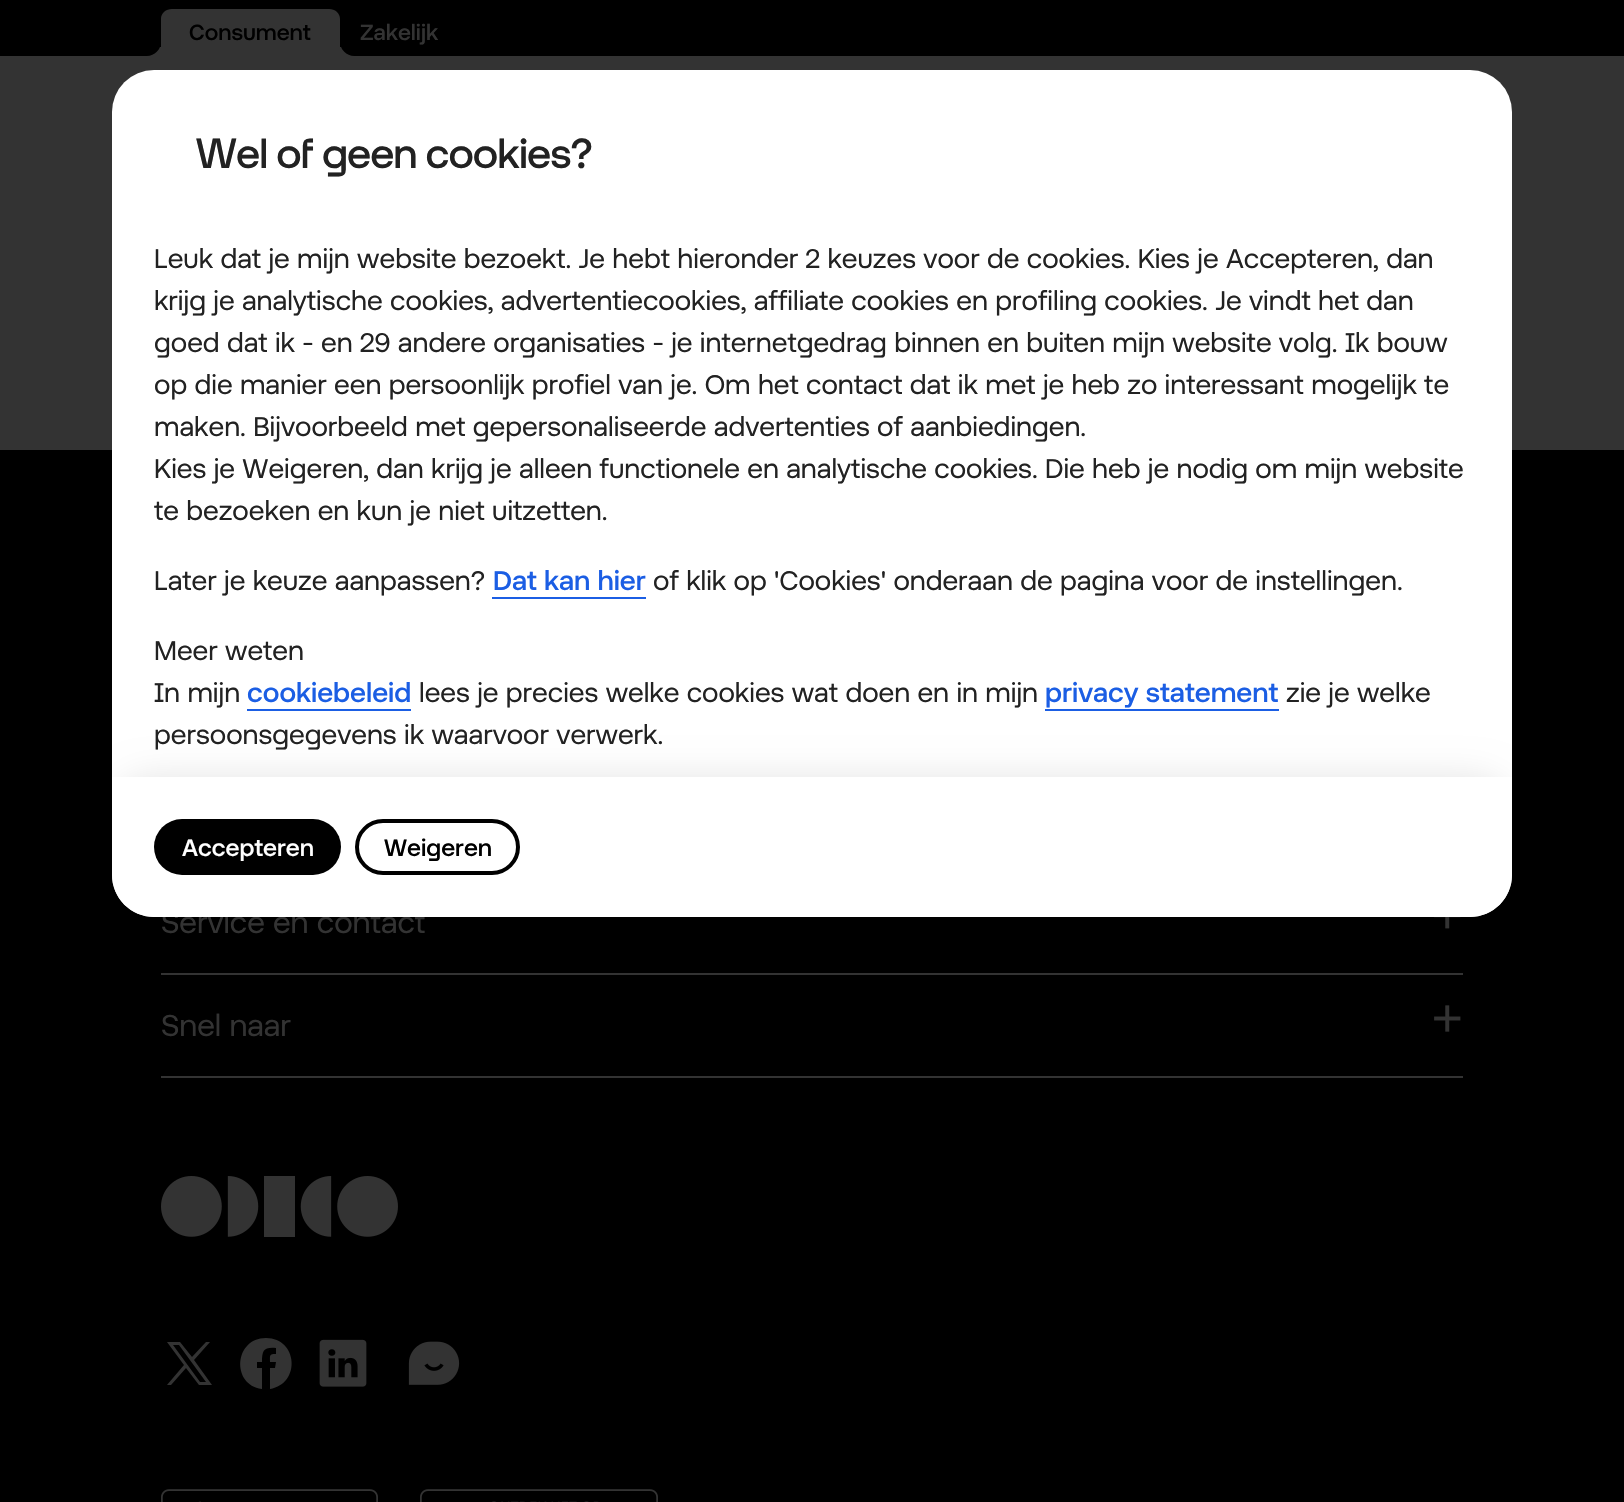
static SkFont makeFont(const char* family, int weight, float size, bool italic = false) {
  SkFontStyle style(weight, SkFontStyle::kNormal_Width,
    italic ? SkFontStyle::kItalic_Slant : SkFontStyle::kUpright_Slant);
  SkFont result(fontMgr->matchFamilyStyle(family, style), size);
  result.setSubpixel(true);
  return result;
}

static void text(SkCanvas* c, const char* s, float x, float y, const SkFont& font, SkColor color) {
  SkPaint ink(SkColor4f::FromColor(color));
  ink.setAntiAlias(true);
  c->drawString(s, x, y, font, ink);
}

static void box(SkCanvas* c, float l, float t, float r, float b, SkColor color) {
  SkPaint ink(SkColor4f::FromColor(color));
  ink.setAntiAlias(true);
  c->drawRect(SkRect::MakeLTRB(l, t, r, b), ink);
}

static void roundBox(SkCanvas* c, float l, float t, float r, float b, float radius, SkColor color) {
  SkPaint ink(SkColor4f::FromColor(color));
  ink.setAntiAlias(true);
  c->drawRoundRect(SkRect::MakeLTRB(l, t, r, b), radius, radius, ink);
}

static void picture(SkCanvas* c, const char* path, float l, float t, float r, float b) {
  auto image = SkImages::DeferredFromEncodedData(SkData::MakeFromFileName(path));
  c->drawImageRect(image, SkRect::MakeLTRB(l, t, r, b), SkSamplingOptions());
}

void draw(SkCanvas* c) {
  SkPaint paint;
  paint.setAntiAlias(true);
  c->clear(0xff333333);
  box(c, 140, 0, 436, 9, 0xff000000);
  box(c, 0, 0, 140, 56, 0xff000000);
  paint.setColor(0xff000000);
  c->drawPath(SkPathBuilder().moveTo(140, 9).lineTo(161, 9).lineTo(161, 42).cubicTo(161, 49.5f, 154.5f, 56, 147, 56).lineTo(140, 56).close().detach(), paint);
  c->drawPath(SkPathBuilder().moveTo(340, 9).lineTo(361, 9).lineTo(361, 56).lineTo(354, 56).cubicTo(346.5f, 56, 340, 49.5f, 340, 42).close().detach(), paint);
  c->save();
  c->clipRect(SkRect::MakeLTRB(140, 9, 361, 56));
  c->drawPath(SkPathBuilder().moveTo(171, -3).cubicTo(164, -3, 159, 2, 159, 9).lineTo(159, 47).lineTo(161, 47).lineTo(161, 19).cubicTo(161, 13, 166, 9, 172, 9).lineTo(329, 9).cubicTo(335, 9, 340, 13, 340, 19).lineTo(340, 47).lineTo(341, 47).lineTo(341, 9).cubicTo(341, 2, 336, -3, 329, -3).close().detach(), paint);
  c->restore();
  SkFont face1 = makeFont("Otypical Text", 500, 22.75f);
  text(c, "Consument", 189, 40, face1, 0xff000000);
  box(c, 361, 9, 436, 56, 0xff000000);
  box(c, 436, 0, 1624, 56, 0xff000000);
  text(c, "Zakelijk", 360, 40, face1, 0xff333333);
  box(c, 0, 450, 1624, 1502, 0xff000000);
  SkFont face2 = makeFont("Otypical Text", 400, 31.5f);
  text(c, "Service en contact", 161, 933, face2, 0xff333333);
  roundBox(c, 112, 70, 1512, 917, 42, 0xffffffff);
  SkFont face3 = makeFont("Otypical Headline", 500, 42);
  text(c, "Wel of geen cookies?", 196, 168, face3, 0xff222222);
  SkFont face4 = makeFont("Otypical Text", 400, 28);
  text(c, "Leuk dat je mijn website bezoekt. Je hebt hieronder 2 keuzes voor de cookies. Kies je Accepteren, dan", 154, 268, face4, 0xff222222);
  text(c, "krijg je analytische cookies, advertentiecookies, affiliate cookies en profiling cookies. Je vindt het dan", 154, 310, face4, 0xff222222);
  text(c, "goed dat ik - en 29 andere organisaties - je internetgedrag binnen en buiten mijn website volg. Ik bouw", 154, 352, face4, 0xff222222);
  text(c, "op die manier een persoonlijk profiel van je. Om het contact dat ik met je heb zo interessant mogelijk te", 154, 394, face4, 0xff222222);
  text(c, "maken. Bijvoorbeeld met gepersonaliseerde advertenties of aanbiedingen.", 154, 436, face4, 0xff222222);
  text(c, "Kies je Weigeren, dan krijg je alleen functionele en analytische cookies. Die heb je nodig om mijn website", 154, 478, face4, 0xff222222);
  text(c, "te bezoeken en kun je niet uitzetten.", 154, 520, face4, 0xff222222);
  text(c, "Later je keuze aanpassen?", 154, 590, face4, 0xff222222);
  SkFont face5 = makeFont("Otypical Text", 500, 28);
  text(c, "Dat kan hier", 493, 590, face5, 0xff1b5ee4);
  box(c, 492, 597, 646, 599, 0xff1b5ee4);
  text(c, "of klik op 'Cookies' onderaan de pagina voor de instellingen.", 653, 590, face4, 0xff222222);
  text(c, "Meer weten", 154, 660, face4, 0xff222222);
  text(c, "In mijn", 154, 702, face4, 0xff222222);
  text(c, "cookiebeleid", 247, 702, face5, 0xff1b5ee4);
  box(c, 247, 709, 411, 711, 0xff1b5ee4);
  text(c, "lees je precies welke cookies wat doen en in mijn", 419, 702, face4, 0xff222222);
  text(c, "privacy statement", 1045, 702, face5, 0xff1b5ee4);
  box(c, 1045, 709, 1279, 711, 0xff1b5ee4);
  text(c, "zie je welke", 1286, 702, face4, 0xff222222);
  picture(c, "img_01.png", 1434, 917, 1461, 929);
  c->save();
  c->clipPath(SkPathBuilder().moveTo(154, 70).lineTo(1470, 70).cubicTo(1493, 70, 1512, 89, 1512, 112).lineTo(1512, 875).cubicTo(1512, 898, 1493, 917, 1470, 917).lineTo(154, 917).cubicTo(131, 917, 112, 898, 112, 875).lineTo(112, 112).cubicTo(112, 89, 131, 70, 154, 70).close().detach(), true);
  paint.setColor(0x1a000000);
  paint.setMaskFilter(SkMaskFilter::MakeBlur(kNormal_SkBlurStyle, 17.5f));
  c->drawRoundRect(SkRect::MakeLTRB(112, 777, 1512, 917), 42, 42, paint);
  paint.setMaskFilter(nullptr);
  c->restore();
  text(c, "persoonsgegevens ik waarvoor verwerk.", 154, 744, face4, 0xff222222);
  paint.setColor(0xffffffff);
  c->drawPath(SkPathBuilder().moveTo(112, 777).lineTo(1512, 777).lineTo(1512, 875).cubicTo(1512, 898, 1493, 917, 1470, 917).lineTo(154, 917).cubicTo(131, 917, 112, 898, 112, 875).close().detach(), paint);
  roundBox(c, 154, 819, 341, 875, 28, 0xff000000);
  SkFont face6 = makeFont("Otypical Text", 500, 24.5f);
  text(c, "Accepteren", 182, 856, face6, 0xffffffff);
  paint.setStyle(SkPaint::kStroke_Style);
  paint.setStrokeWidth(4);
  paint.setColor(0xff000000);
  c->drawRoundRect(SkRect::MakeLTRB(357, 821, 518, 873), 26, 26, paint);
  text(c, "Weigeren", 384, 856, face6, 0xff000000);
  box(c, 161, 973, 1463, 975, 0xff333333);
  box(c, 161, 1076, 1463, 1078, 0xff333333);
  text(c, "Snel naar", 161, 1036, face2, 0xff333333);
  picture(c, "img_02.png", 1434, 1005, 1461, 1032);
  picture(c, "img_03.png", 161, 1176, 398, 1237);
  paint.setStyle(SkPaint::kFill_Style);
  paint.setColor(0xff333333);
  c->drawPath(SkPathBuilder().moveTo(184, 1365).lineTo(167, 1342).lineTo(180, 1342).lineTo(192, 1357).lineTo(206, 1342).lineTo(210, 1342).lineTo(194, 1360).lineTo(212, 1385).lineTo(199, 1385).lineTo(186, 1368).lineTo(171, 1385).lineTo(167, 1385).close().moveTo(179, 1345).lineTo(173, 1345).lineTo(200, 1382).lineTo(206, 1382).close().detach(), paint);
  c->drawPath(SkPathBuilder().moveTo(266, 1338).cubicTo(234, 1338, 231, 1385, 262, 1389).lineTo(262, 1368).lineTo(257, 1368).lineTo(257, 1362).lineTo(262, 1362).cubicTo(262, 1350, 264, 1347, 276, 1348).lineTo(276, 1354).cubicTo(269, 1354, 270, 1355, 270, 1362).lineTo(276, 1362).lineTo(275, 1368).lineTo(270, 1368).lineTo(270, 1389).cubicTo(301, 1384, 298, 1338, 266, 1338).close().detach(), paint);
  picture(c, "img_04.png", 319, 1339, 367, 1387);
  picture(c, "img_05.png", 408, 1341, 460, 1385);
  picture(c, "img_06.png", 161, 1489, 378, 1502);
  picture(c, "img_07.png", 420, 1489, 658, 1502);
}
